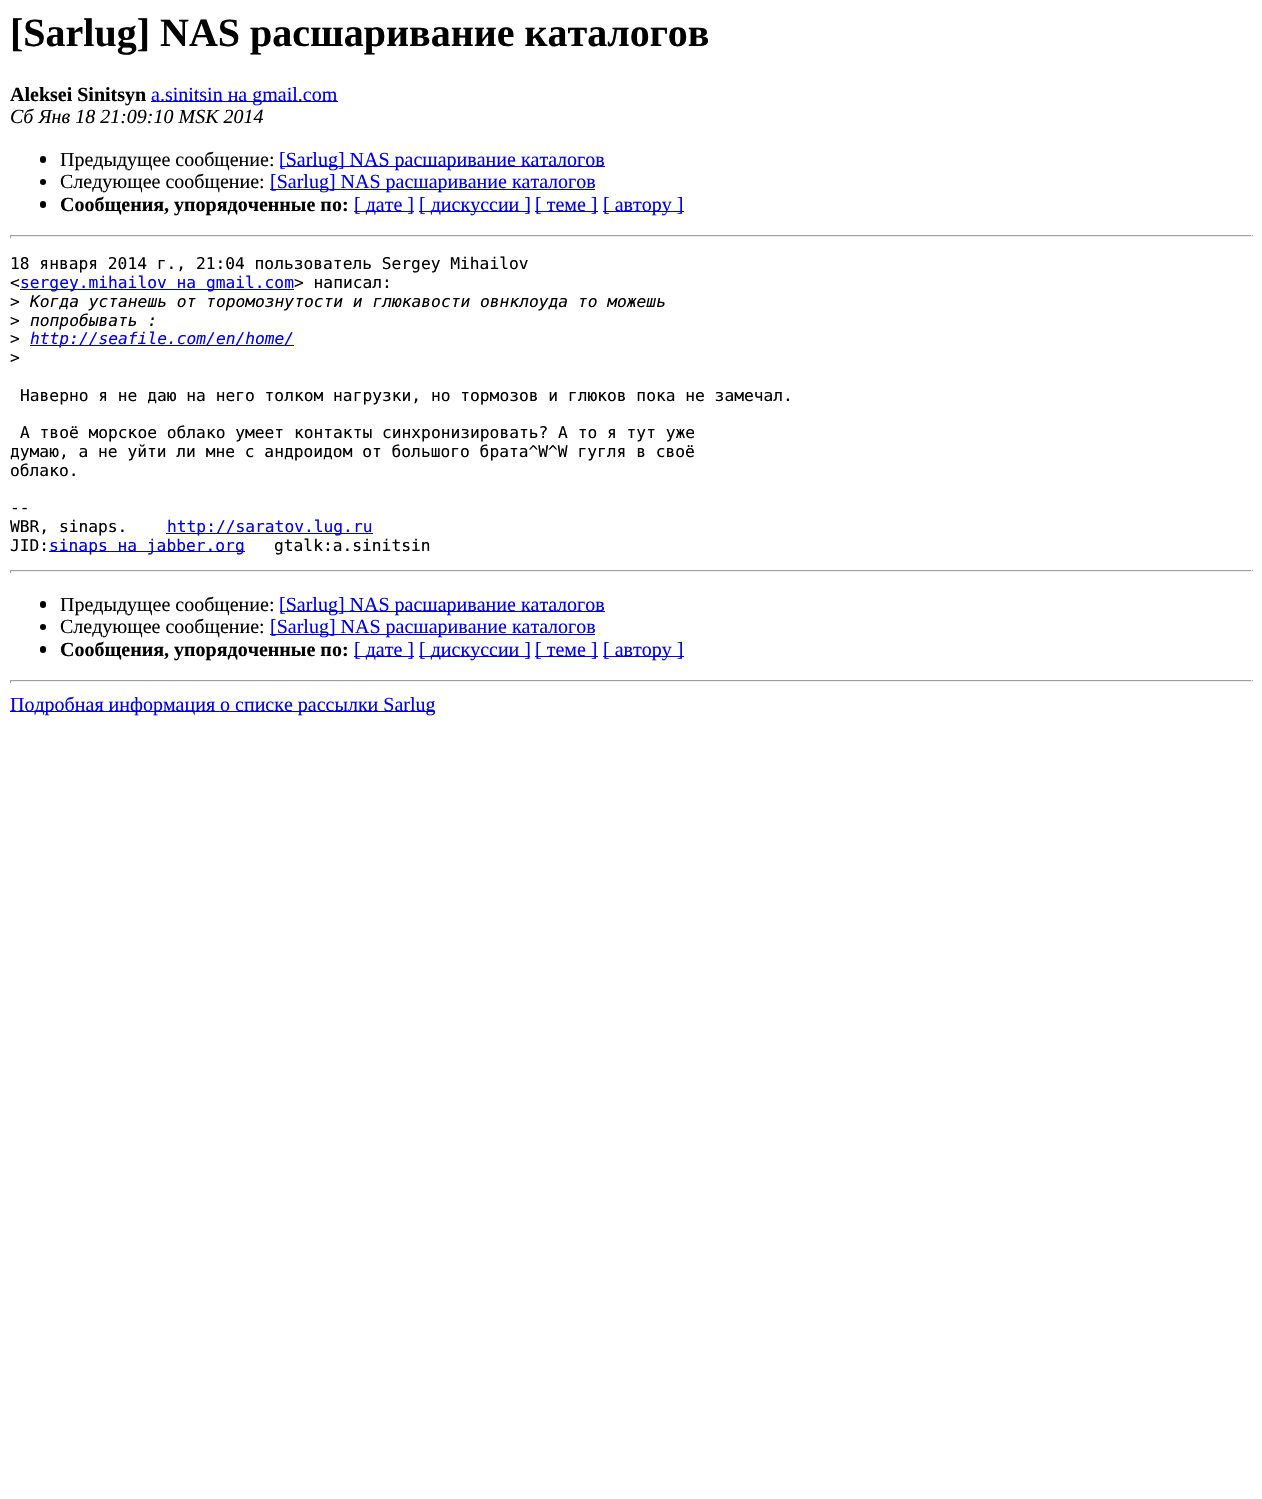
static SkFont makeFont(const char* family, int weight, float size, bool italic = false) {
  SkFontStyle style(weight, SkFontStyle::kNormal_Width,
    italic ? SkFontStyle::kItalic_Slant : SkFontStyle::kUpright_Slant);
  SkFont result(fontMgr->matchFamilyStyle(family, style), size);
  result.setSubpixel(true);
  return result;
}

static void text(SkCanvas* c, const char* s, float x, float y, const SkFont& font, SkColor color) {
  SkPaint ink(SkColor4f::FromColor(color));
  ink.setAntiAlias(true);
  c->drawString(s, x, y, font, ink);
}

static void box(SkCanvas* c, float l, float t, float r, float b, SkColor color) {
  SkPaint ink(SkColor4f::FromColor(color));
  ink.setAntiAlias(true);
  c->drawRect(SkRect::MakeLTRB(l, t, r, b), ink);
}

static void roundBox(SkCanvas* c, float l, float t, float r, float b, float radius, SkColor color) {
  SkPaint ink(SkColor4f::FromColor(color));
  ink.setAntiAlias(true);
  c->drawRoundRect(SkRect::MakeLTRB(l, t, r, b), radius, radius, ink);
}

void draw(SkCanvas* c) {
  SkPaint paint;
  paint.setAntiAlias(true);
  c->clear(0xffffffff);
  SkFont face1 = makeFont("Liberation Serif", 700, 40);
  text(c, "[Sarlug] NAS расшаривание каталогов", 10, 46, face1, 0xff000000);
  SkFont face2 = makeFont("Liberation Serif", 700, 20);
  text(c, "Aleksei Sinitsyn", 10, 101, face2, 0xff000000);
  box(c, 151, 101, 338, 102, 0xff0000ee);
  SkFont face3 = makeFont("Liberation Serif", 400, 20);
  text(c, "a.sinitsin на gmail.com", 151, 101, face3, 0xff0000ee);
  SkFont face4 = makeFont("Liberation Serif", 400, 20, true);
  text(c, "Сб Янв 18 21:09:10 MSK 2014", 10, 123, face4, 0xff000000);
  roundBox(c, 40, 156, 46, 163, 3, 0xff000000);
  text(c, "Предыдущее сообщение:", 60, 166, face3, 0xff000000);
  box(c, 280, 166, 605, 167, 0xff0000ee);
  text(c, "[Sarlug] NAS расшаривание каталогов", 279, 166, face3, 0xff0000ee);
  paint.setColor(0xff000000);
  c->drawCircle(43, 182, 3, paint);
  text(c, "Следующее сообщение:", 60, 188, face3, 0xff000000);
  box(c, 270, 189, 595, 190, 0xff0000ee);
  text(c, "[Sarlug] NAS расшаривание каталогов", 270, 188, face3, 0xff0000ee);
  roundBox(c, 40, 201, 46, 208, 3, 0xff000000);
  text(c, "Сообщения, упорядоченные по:", 60, 211, face2, 0xff000000);
  box(c, 354, 211, 414, 212, 0xff0000ee);
  text(c, "[ дате ]", 354, 211, face3, 0xff0000ee);
  box(c, 419, 211, 530, 212, 0xff0000ee);
  text(c, "[ дискуссии ]", 419, 211, face3, 0xff0000ee);
  box(c, 535, 211, 598, 212, 0xff0000ee);
  text(c, "[ теме ]", 535, 211, face3, 0xff0000ee);
  box(c, 603, 211, 684, 212, 0xff0000ee);
  text(c, "[ автору ]", 603, 211, face3, 0xff0000ee);
  box(c, 10, 235, 1253, 236, 0xff9f9f9f);
  box(c, 1251, 235, 1252, 238, 0xffeeeeee);
  box(c, 10, 236, 1253, 237, 0xffeeeeee);
  box(c, 10, 235, 11, 238, 0xff9f9f9f);
  SkFont face5 = makeFont("DejaVu Sans Mono", 400, 16.25f);
  text(c, "18 января 2014 г., 21:04 пользователь Sergey Mihailov", 10, 269, face5, 0xff000000);
  text(c, "<", 10, 288, face5, 0xff000000);
  box(c, 20, 289, 294, 290, 0xff0000ee);
  text(c, "sergey.mihailov на gmail.com", 20, 288, face5, 0xff0000ee);
  text(c, "> написал:", 294, 288, face5, 0xff000000);
  text(c, ">", 10, 307, face5, 0xff000000);
  SkFont face6 = makeFont("DejaVu Sans Mono", 400, 16.25f, true);
  text(c, "Когда устанешь от торомознутости и глюкавости овнклоуда то можешь", 30, 307, face6, 0xff000000);
  text(c, ">", 10, 326, face5, 0xff000000);
  text(c, "попробывать :", 30, 326, face6, 0xff000000);
  text(c, ">", 10, 344, face5, 0xff000000);
  box(c, 30, 345, 294, 346, 0xff0000ee);
  text(c, "http://seafile.com/en/home/", 30, 344, face6, 0xff0000ee);
  text(c, ">", 10, 363, face5, 0xff000000);
  text(c, "Наверно я не даю на него толком нагрузки, но тормозов и глюков пока не замечал.", 20, 401, face5, 0xff000000);
  text(c, "А твоё морское облако умеет контакты синхронизировать? А то я тут уже", 20, 438, face5, 0xff000000);
  text(c, "думаю, а не уйти ли мне с андроидом от большого брата^W^W гугля в своё", 10, 457, face5, 0xff000000);
  text(c, "облако.", 10, 476, face5, 0xff000000);
  text(c, "--", 10, 513, face5, 0xff000000);
  text(c, "WBR, sinaps.", 10, 532, face5, 0xff000000);
  box(c, 166, 533, 373, 534, 0xff0000ee);
  text(c, "http://saratov.lug.ru", 167, 532, face5, 0xff0000ee);
  text(c, "JID:", 10, 551, face5, 0xff000000);
  box(c, 49, 551, 245, 552, 0xff0000ee);
  text(c, "sinaps на jabber.org", 49, 551, face5, 0xff0000ee);
  text(c, "gtalk:a.sinitsin", 274, 551, face5, 0xff000000);
  box(c, 10, 570, 1253, 571, 0xff9f9f9f);
  box(c, 1251, 570, 1252, 573, 0xffeeeeee);
  box(c, 10, 571, 1253, 572, 0xffeeeeee);
  box(c, 10, 570, 11, 573, 0xff9f9f9f);
  roundBox(c, 40, 601, 46, 608, 3, 0xff000000);
  text(c, "Предыдущее сообщение:", 60, 611, face3, 0xff000000);
  box(c, 280, 611, 605, 612, 0xff0000ee);
  text(c, "[Sarlug] NAS расшаривание каталогов", 279, 611, face3, 0xff0000ee);
  c->drawCircle(43, 627, 3, paint);
  text(c, "Следующее сообщение:", 60, 633, face3, 0xff000000);
  box(c, 270, 634, 595, 635, 0xff0000ee);
  text(c, "[Sarlug] NAS расшаривание каталогов", 270, 633, face3, 0xff0000ee);
  roundBox(c, 40, 646, 46, 653, 3, 0xff000000);
  text(c, "Сообщения, упорядоченные по:", 60, 656, face2, 0xff000000);
  box(c, 354, 656, 414, 657, 0xff0000ee);
  text(c, "[ дате ]", 354, 656, face3, 0xff0000ee);
  box(c, 419, 656, 530, 657, 0xff0000ee);
  text(c, "[ дискуссии ]", 419, 656, face3, 0xff0000ee);
  box(c, 535, 656, 598, 657, 0xff0000ee);
  text(c, "[ теме ]", 535, 656, face3, 0xff0000ee);
  box(c, 603, 656, 684, 657, 0xff0000ee);
  text(c, "[ автору ]", 603, 656, face3, 0xff0000ee);
  box(c, 10, 680, 1253, 681, 0xff9f9f9f);
  box(c, 1251, 680, 1252, 683, 0xffeeeeee);
  box(c, 10, 681, 1253, 682, 0xffeeeeee);
  box(c, 10, 680, 11, 683, 0xff9f9f9f);
  box(c, 10, 711, 435, 712, 0xff0000ee);
  text(c, "Подробная информация о списке рассылки Sarlug", 10, 711, face3, 0xff0000ee);
}
